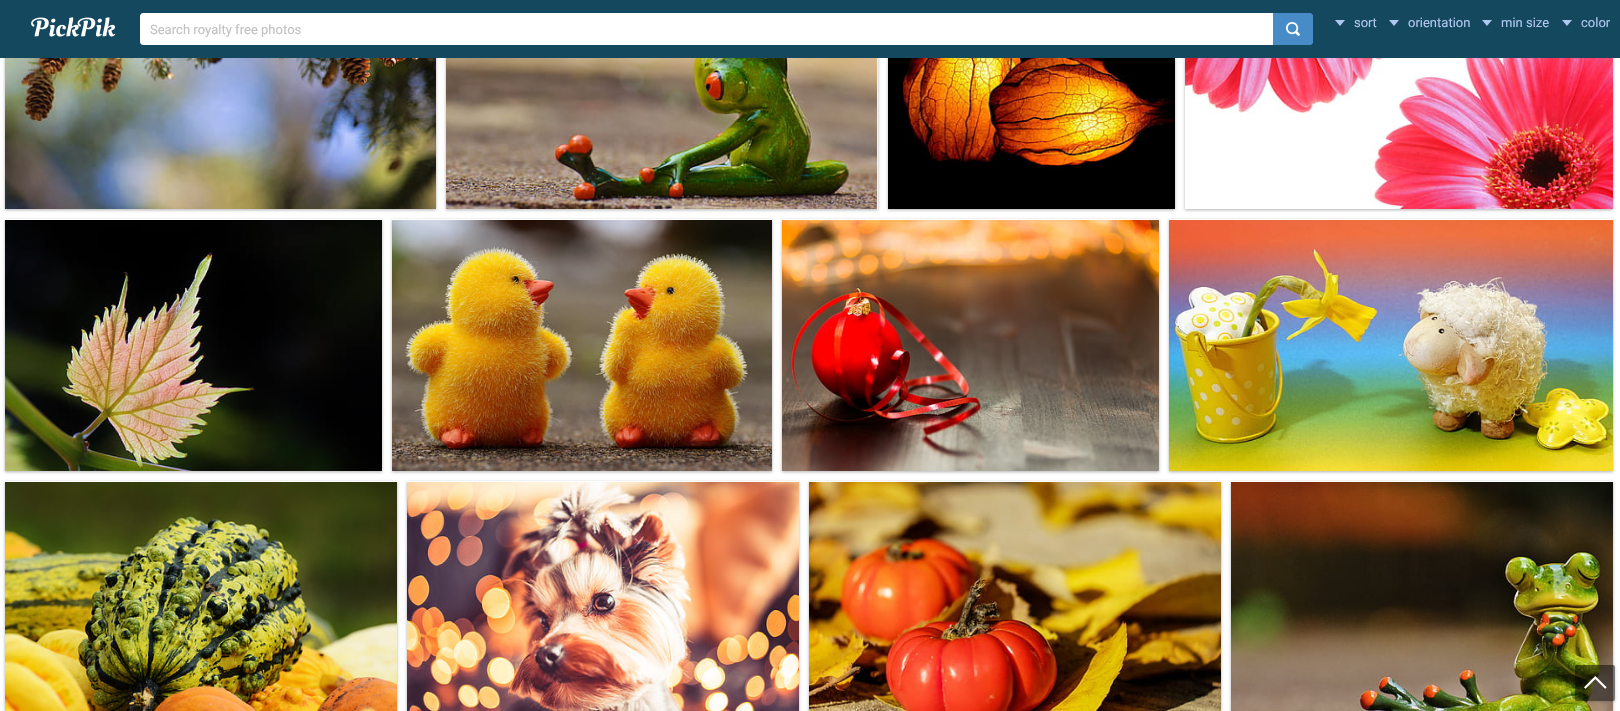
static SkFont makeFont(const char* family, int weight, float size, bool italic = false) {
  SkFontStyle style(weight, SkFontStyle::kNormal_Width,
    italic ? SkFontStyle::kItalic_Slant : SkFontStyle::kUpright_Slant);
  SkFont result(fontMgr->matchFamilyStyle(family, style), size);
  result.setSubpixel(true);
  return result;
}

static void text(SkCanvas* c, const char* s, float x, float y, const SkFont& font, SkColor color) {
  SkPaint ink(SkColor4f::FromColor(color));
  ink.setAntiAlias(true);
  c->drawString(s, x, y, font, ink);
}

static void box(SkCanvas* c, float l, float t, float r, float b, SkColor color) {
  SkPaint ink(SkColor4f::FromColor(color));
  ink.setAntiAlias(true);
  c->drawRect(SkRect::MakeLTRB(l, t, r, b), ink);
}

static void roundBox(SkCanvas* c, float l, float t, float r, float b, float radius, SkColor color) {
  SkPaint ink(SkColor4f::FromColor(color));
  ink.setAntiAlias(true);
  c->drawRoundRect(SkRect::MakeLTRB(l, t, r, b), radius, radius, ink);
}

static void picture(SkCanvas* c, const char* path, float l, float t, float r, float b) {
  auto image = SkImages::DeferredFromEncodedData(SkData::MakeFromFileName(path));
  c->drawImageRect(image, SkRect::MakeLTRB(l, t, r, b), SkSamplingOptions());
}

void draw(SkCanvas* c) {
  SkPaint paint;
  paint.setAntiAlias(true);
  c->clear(0xffffffff);
  paint.setColor(0x4d000000);
  paint.setMaskFilter(SkMaskFilter::MakeBlur(kNormal_SkBlurStyle, 1.5f));
  c->drawRect(SkRect::MakeLTRB(5, -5, 436, 210), paint);
  paint.setMaskFilter(nullptr);
  picture(c, "img_01.png", 5, 58, 436, 209);
  paint.setMaskFilter(SkMaskFilter::MakeBlur(kNormal_SkBlurStyle, 1.5f));
  c->drawRect(SkRect::MakeLTRB(446, -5, 878, 210), paint);
  paint.setMaskFilter(nullptr);
  box(c, 877, 58, 878, 209, 0xfff1f1f1);
  picture(c, "img_02.png", 446, 58, 877, 209);
  paint.setMaskFilter(SkMaskFilter::MakeBlur(kNormal_SkBlurStyle, 1.5f));
  c->drawRect(SkRect::MakeLTRB(888, -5, 1175, 210), paint);
  paint.setMaskFilter(nullptr);
  picture(c, "img_03.png", 888, 58, 1175, 209);
  paint.setMaskFilter(SkMaskFilter::MakeBlur(kNormal_SkBlurStyle, 1.5f));
  c->drawRect(SkRect::MakeLTRB(1185, -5, 1613, 210), paint);
  paint.setMaskFilter(nullptr);
  picture(c, "img_04.png", 1185, 58, 1613, 209);
  paint.setMaskFilter(SkMaskFilter::MakeBlur(kNormal_SkBlurStyle, 1.5f));
  c->drawRect(SkRect::MakeLTRB(5, 220, 382, 472), paint);
  paint.setMaskFilter(nullptr);
  box(c, 5, 219, 382, 220, 0xffffffff);
  picture(c, "img_05.png", 5, 220, 382, 471);
  paint.setMaskFilter(SkMaskFilter::MakeBlur(kNormal_SkBlurStyle, 1.5f));
  c->drawRect(SkRect::MakeLTRB(392, 220, 772, 472), paint);
  paint.setMaskFilter(nullptr);
  box(c, 392, 219, 772, 220, 0xffffffff);
  picture(c, "img_06.png", 392, 220, 772, 471);
  paint.setMaskFilter(SkMaskFilter::MakeBlur(kNormal_SkBlurStyle, 1.5f));
  c->drawRect(SkRect::MakeLTRB(782, 220, 1159, 472), paint);
  paint.setMaskFilter(nullptr);
  box(c, 782, 219, 1159, 220, 0xffffffff);
  picture(c, "img_07.png", 782, 220, 1159, 471);
  paint.setMaskFilter(SkMaskFilter::MakeBlur(kNormal_SkBlurStyle, 1.5f));
  c->drawRect(SkRect::MakeLTRB(1169, 220, 1613, 472), paint);
  paint.setMaskFilter(nullptr);
  box(c, 1169, 219, 1613, 220, 0xffffffff);
  picture(c, "img_08.png", 1169, 220, 1613, 471);
  paint.setMaskFilter(SkMaskFilter::MakeBlur(kNormal_SkBlurStyle, 1.5f));
  c->drawRect(SkRect::MakeLTRB(5, 482, 397, 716), paint);
  paint.setMaskFilter(nullptr);
  box(c, 5, 481, 397, 482, 0xffffffff);
  picture(c, "img_09.png", 5, 482, 397, 711);
  paint.setMaskFilter(SkMaskFilter::MakeBlur(kNormal_SkBlurStyle, 1.5f));
  c->drawRect(SkRect::MakeLTRB(407, 482, 799, 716), paint);
  paint.setMaskFilter(nullptr);
  box(c, 407, 481, 799, 482, 0xffffffff);
  picture(c, "img_10.png", 407, 482, 799, 711);
  paint.setMaskFilter(SkMaskFilter::MakeBlur(kNormal_SkBlurStyle, 1.5f));
  c->drawRect(SkRect::MakeLTRB(809, 482, 1221, 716), paint);
  paint.setMaskFilter(nullptr);
  box(c, 809, 481, 1221, 482, 0xffffffff);
  picture(c, "img_11.png", 809, 482, 1221, 711);
  paint.setMaskFilter(SkMaskFilter::MakeBlur(kNormal_SkBlurStyle, 1.5f));
  c->drawRect(SkRect::MakeLTRB(1231, 482, 1613, 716), paint);
  paint.setMaskFilter(nullptr);
  box(c, 1231, 481, 1613, 482, 0xffffffff);
  picture(c, "img_12.png", 1231, 482, 1613, 711);
  box(c, 0, 0, 1620, 58, 0xff14485f);
  picture(c, "img_13.png", 31, 17, 116, 37);
  paint.setColor(0xffafc7ee);
  c->drawPath(SkPathBuilder().moveTo(1335, 20).lineTo(1345, 20).lineTo(1340, 26).close().detach(), paint);
  SkFont face1 = makeFont("Roboto", 400, 13);
  text(c, "sort", 1354, 27, face1, 0xffafc7ee);
  c->drawPath(SkPathBuilder().moveTo(1389, 20).lineTo(1399, 20).lineTo(1394, 26).close().detach(), paint);
  text(c, "orientation", 1408, 27, face1, 0xffafc7ee);
  c->drawPath(SkPathBuilder().moveTo(1482, 20).lineTo(1492, 20).lineTo(1487, 26).close().detach(), paint);
  text(c, "min size", 1501, 27, face1, 0xffafc7ee);
  c->drawPath(SkPathBuilder().moveTo(1562, 20).lineTo(1572, 20).lineTo(1567, 26).close().detach(), paint);
  text(c, "color", 1581, 27, face1, 0xffafc7ee);
  paint.setColor(0xffffffff);
  c->drawPath(SkPathBuilder().moveTo(143, 13).lineTo(1308, 13).cubicTo(1311, 13, 1313, 15, 1313, 18).lineTo(1313, 40).cubicTo(1313, 43, 1311, 45, 1308, 45).lineTo(143, 45).cubicTo(141.5f, 45, 140, 43.5f, 140, 42).lineTo(140, 16).cubicTo(140, 14.5f, 141.5f, 13, 143, 13).close().detach(), paint);
  text(c, "Search royalty free photos", 150, 34, face1, 0xffc1c1c1);
  paint.setColor(0xff478cc6);
  c->drawPath(SkPathBuilder().moveTo(1273, 13).lineTo(1310, 13).cubicTo(1311.5f, 13, 1313, 14.5f, 1313, 16).lineTo(1313, 42).cubicTo(1313, 43.5f, 1311.5f, 45, 1310, 45).lineTo(1273, 45).close().detach(), paint);
  picture(c, "img_14.png", 1286, 22, 1300, 36);
  c->save();
  c->clipPath(SkPathBuilder(SkPathFillType::kEvenOdd).moveTo(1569, 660).lineTo(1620, 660).lineTo(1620, 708).lineTo(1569, 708).close().moveTo(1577, 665).lineTo(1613, 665).cubicTo(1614, 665, 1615, 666, 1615, 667).lineTo(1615, 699).cubicTo(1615, 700, 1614, 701, 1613, 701).lineTo(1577, 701).cubicTo(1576, 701, 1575, 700, 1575, 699).lineTo(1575, 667).cubicTo(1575, 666, 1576, 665, 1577, 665).close().detach(), true);
  paint.setColor(0x33000000);
  paint.setMaskFilter(SkMaskFilter::MakeBlur(kNormal_SkBlurStyle, 1.5f));
  c->drawRoundRect(SkRect::MakeLTRB(1575, 666, 1615, 702), 2, 2, paint);
  paint.setMaskFilter(nullptr);
  c->restore();
  roundBox(c, 1575, 665, 1615, 701, 2, 0x80000000);
  picture(c, "img_15.png", 1584, 676, 1607, 689);
}
